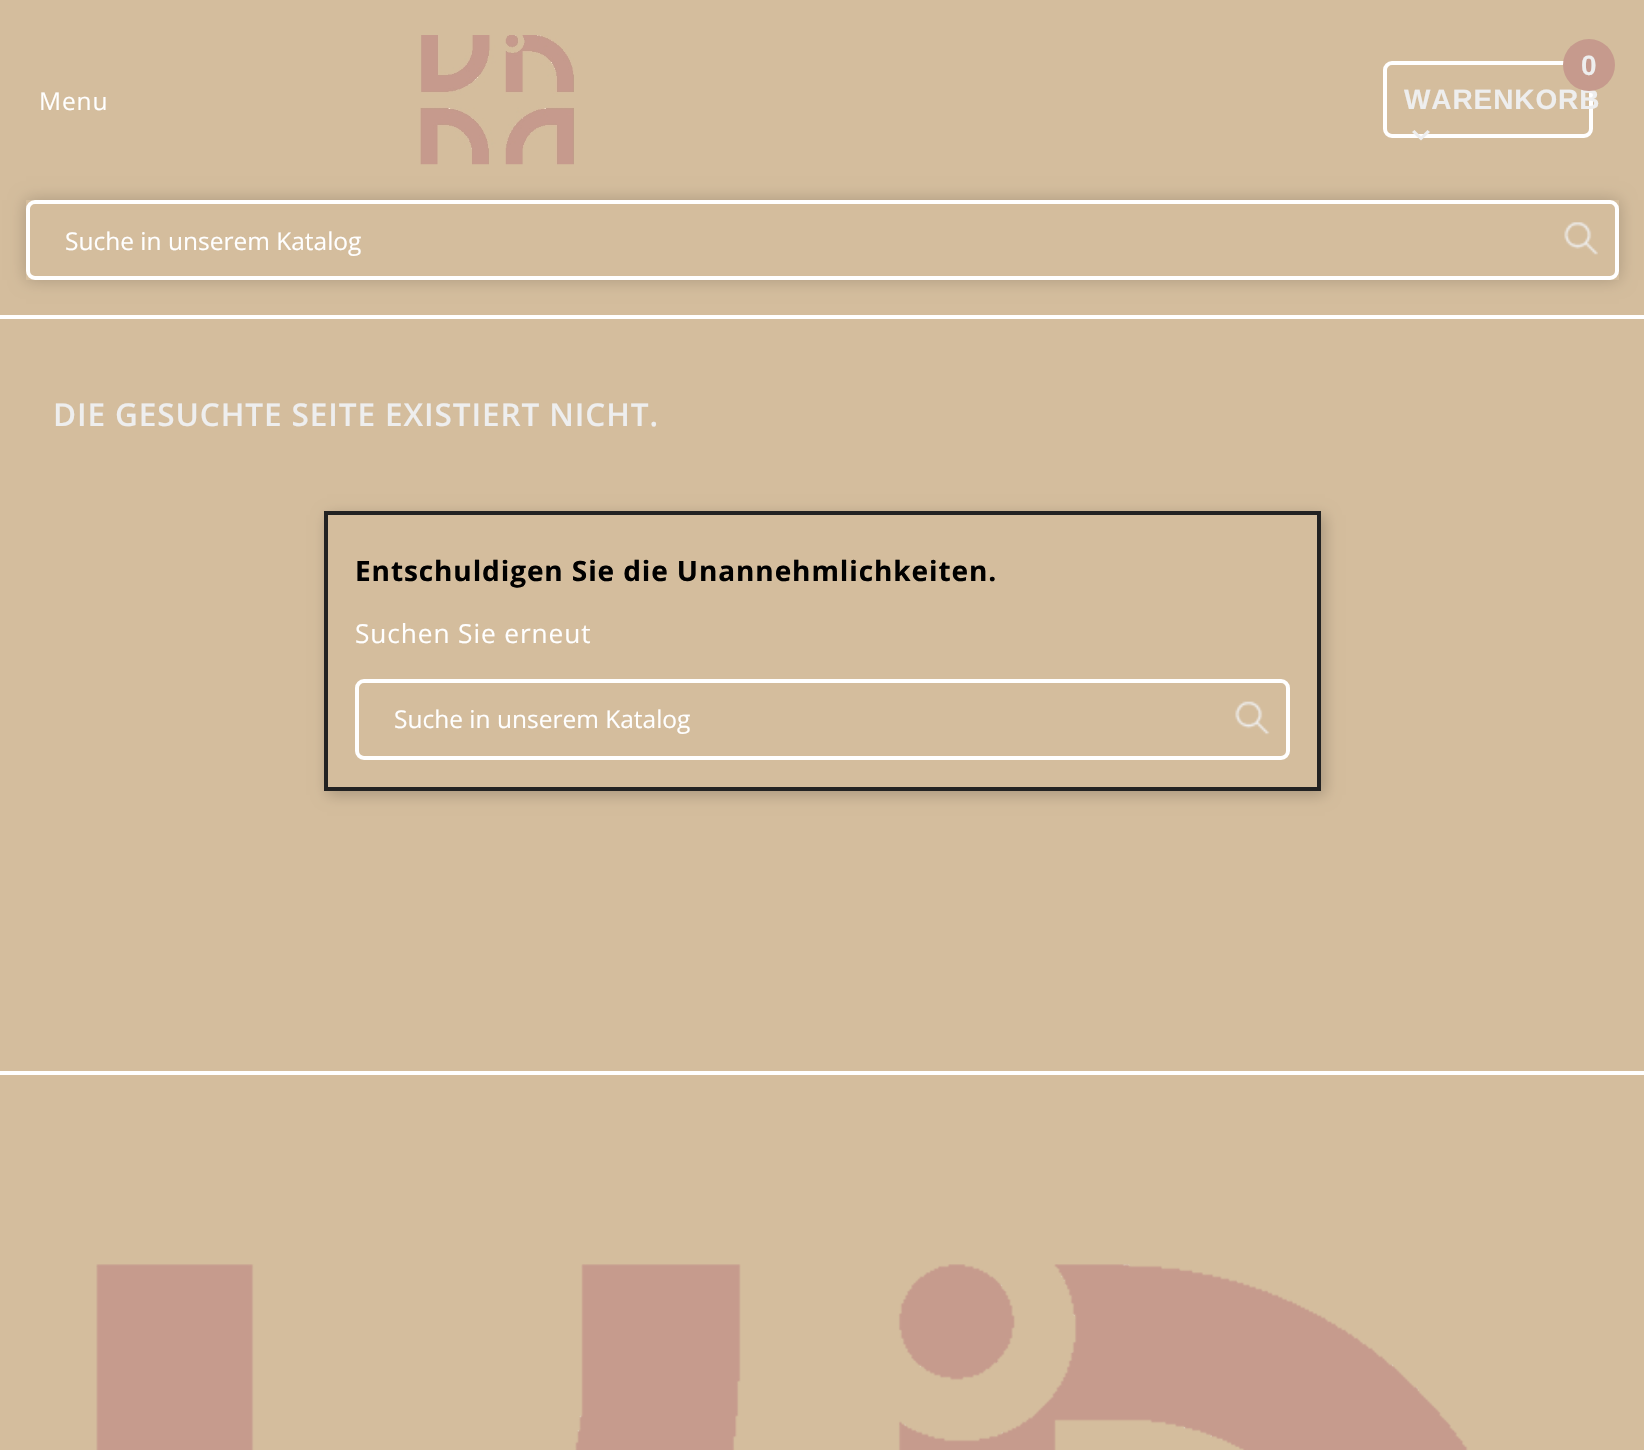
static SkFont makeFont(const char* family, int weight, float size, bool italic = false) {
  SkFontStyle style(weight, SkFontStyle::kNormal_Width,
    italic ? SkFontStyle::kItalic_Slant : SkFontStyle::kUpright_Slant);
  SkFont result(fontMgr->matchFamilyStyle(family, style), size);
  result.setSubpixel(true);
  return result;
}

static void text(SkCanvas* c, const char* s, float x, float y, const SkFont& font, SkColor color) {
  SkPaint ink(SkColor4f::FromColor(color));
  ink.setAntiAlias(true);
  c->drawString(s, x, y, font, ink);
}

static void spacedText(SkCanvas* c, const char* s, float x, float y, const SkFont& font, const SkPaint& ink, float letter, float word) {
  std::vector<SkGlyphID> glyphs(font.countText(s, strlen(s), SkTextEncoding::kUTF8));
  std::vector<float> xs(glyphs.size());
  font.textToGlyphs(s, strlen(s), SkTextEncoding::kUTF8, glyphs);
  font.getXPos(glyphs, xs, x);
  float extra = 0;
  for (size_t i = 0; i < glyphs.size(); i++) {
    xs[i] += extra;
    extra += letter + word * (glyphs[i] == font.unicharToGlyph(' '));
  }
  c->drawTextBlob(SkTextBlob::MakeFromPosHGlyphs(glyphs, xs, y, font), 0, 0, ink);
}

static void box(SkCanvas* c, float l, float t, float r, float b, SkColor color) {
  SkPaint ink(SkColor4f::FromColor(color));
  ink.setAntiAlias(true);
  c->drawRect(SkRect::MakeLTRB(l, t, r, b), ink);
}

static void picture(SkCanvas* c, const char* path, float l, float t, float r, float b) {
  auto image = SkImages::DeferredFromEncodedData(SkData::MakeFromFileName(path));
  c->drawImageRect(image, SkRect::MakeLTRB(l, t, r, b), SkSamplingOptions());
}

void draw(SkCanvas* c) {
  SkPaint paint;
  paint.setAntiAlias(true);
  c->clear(0xffd4bd9d);
  box(c, 0, 315, 1644, 319, 0xffffffff);
  SkFont face1 = makeFont("Open Sans", 400, 24.5f);
  paint.setColor(0xffffffff);
  spacedText(c, "Menu", 39, 110, face1, paint, 0.9f, 0);
  picture(c, "img_01.png", 420, 35, 574, 165);
  paint.setStyle(SkPaint::kStroke_Style);
  paint.setStrokeWidth(4);
  c->drawRoundRect(SkRect::MakeLTRB(1385, 63, 1591, 136), 7, 7, paint);
  SkFont face2 = makeFont("Arimo", 700, 28);
  paint.setStyle(SkPaint::kFill_Style);
  paint.setColor(0xffeeeeee);
  spacedText(c, "WARENKORB", 1404, 109, face2, paint, 0.9f, 0);
  paint.setColor(0xffc69a8d);
  c->drawCircle(1589, 65, 26, paint);
  paint.setColor(0xffeeeeee);
  spacedText(c, "0", 1581, 75, face2, paint, 0.9f, 0);
  c->drawPath(SkPathBuilder().moveTo(1427.5f, 130).lineTo(1430, 132).lineTo(1421, 140.5f).lineTo(1412, 132).lineTo(1414.5f, 130).lineTo(1421, 136.5f).close().detach(), paint);
  c->save();
  c->clipPath(SkPathBuilder(SkPathFillType::kEvenOdd).moveTo(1, 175).lineTo(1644, 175).lineTo(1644, 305).lineTo(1, 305).close().moveTo(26, 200).lineTo(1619, 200).lineTo(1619, 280).lineTo(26, 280).close().detach(), true);
  paint.setColor(0x33000000);
  paint.setMaskFilter(SkMaskFilter::MakeBlur(kNormal_SkBlurStyle, 8));
  c->drawRect(SkRect::MakeLTRB(26, 200, 1619, 280), paint);
  paint.setMaskFilter(nullptr);
  c->restore();
  paint.setStyle(SkPaint::kStroke_Style);
  paint.setColor(0xffffffff);
  c->drawRoundRect(SkRect::MakeLTRB(28, 202, 1617, 278), 7, 7, paint);
  text(c, "Suche in unserem Katalog", 65, 250, face1, 0xffffffff);
  picture(c, "img_02.png", 1564, 222, 1598, 255);
  SkFont face3 = makeFont("Open Sans", 600, 31.5f);
  paint.setStyle(SkPaint::kFill_Style);
  paint.setColor(0xffeeeeee);
  spacedText(c, "DIE GESUCHTE SEITE EXISTIERT NICHT.", 53, 426, face3, paint, 0.9f, 0);
  c->save();
  c->clipPath(SkPathBuilder(SkPathFillType::kEvenOdd).moveTo(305, 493).lineTo(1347, 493).lineTo(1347, 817).lineTo(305, 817).close().moveTo(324, 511).lineTo(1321, 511).lineTo(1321, 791).lineTo(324, 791).close().detach(), true);
  paint.setColor(0x33000000);
  paint.setMaskFilter(SkMaskFilter::MakeBlur(kNormal_SkBlurStyle, 7));
  c->drawRect(SkRect::MakeLTRB(327, 515, 1325, 795), paint);
  paint.setMaskFilter(nullptr);
  c->restore();
  paint.setStyle(SkPaint::kStroke_Style);
  paint.setColor(0xff222222);
  c->drawRect(SkRect::MakeLTRB(326, 513, 1319, 789), paint);
  SkFont face4 = makeFont("Open Sans", 700, 28);
  paint.setStyle(SkPaint::kFill_Style);
  paint.setColor(0xff000000);
  spacedText(c, "Entschuldigen Sie die Unannehmlichkeiten.", 355, 581, face4, paint, 0.9f, 0);
  SkFont face5 = makeFont("Open Sans", 400, 26.25f);
  paint.setColor(0xffffffff);
  spacedText(c, "Suchen Sie erneut", 355, 643, face5, paint, 0.9f, 0);
  paint.setStyle(SkPaint::kStroke_Style);
  c->drawRoundRect(SkRect::MakeLTRB(357, 681, 1288, 758), 7, 7, paint);
  text(c, "Suche in unserem Katalog", 394, 728, face1, 0xffffffff);
  picture(c, "img_03.png", 1235, 701, 1270, 735);
  box(c, 0, 1071, 1644, 1075, 0xffffffff);
  picture(c, "img_04.png", 96, 1264, 1468, 1450);
}
